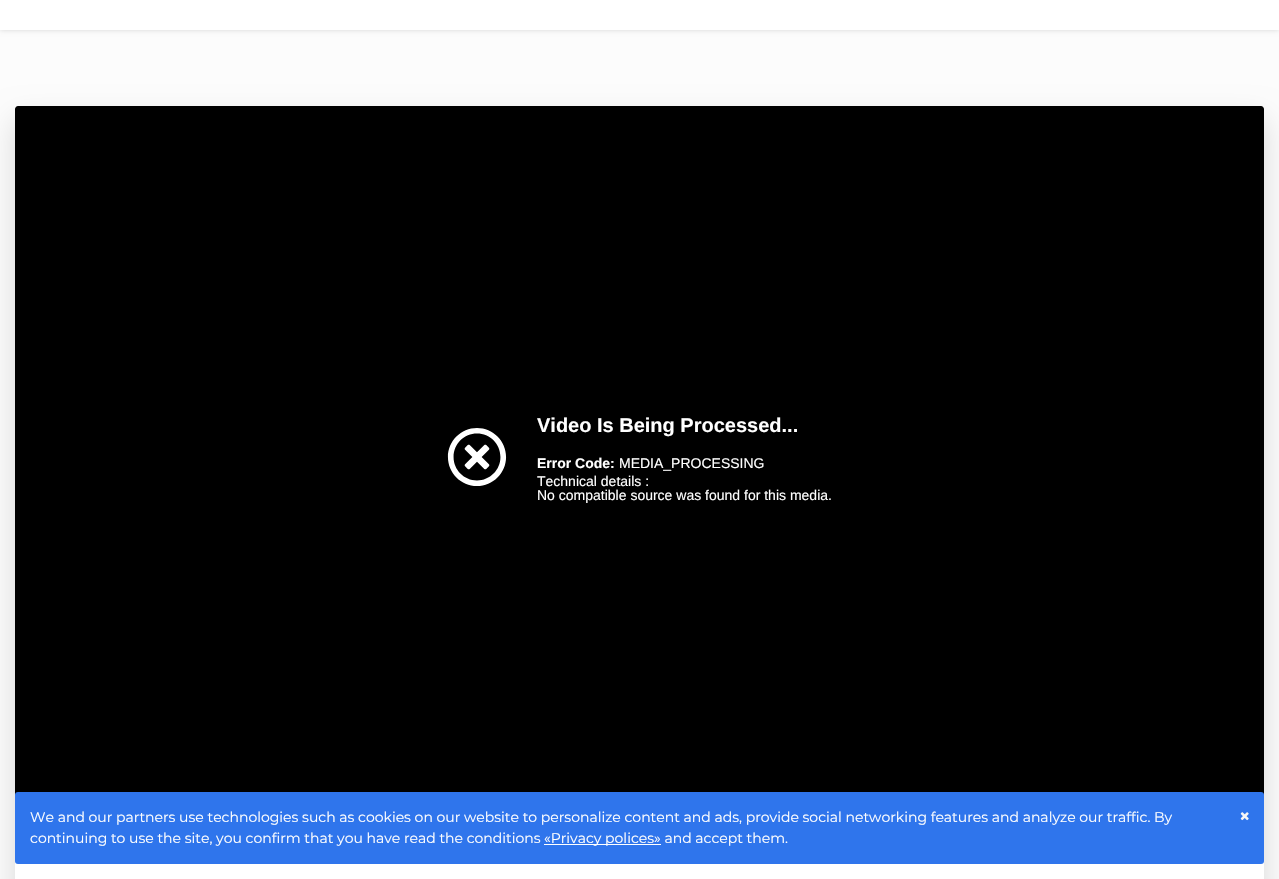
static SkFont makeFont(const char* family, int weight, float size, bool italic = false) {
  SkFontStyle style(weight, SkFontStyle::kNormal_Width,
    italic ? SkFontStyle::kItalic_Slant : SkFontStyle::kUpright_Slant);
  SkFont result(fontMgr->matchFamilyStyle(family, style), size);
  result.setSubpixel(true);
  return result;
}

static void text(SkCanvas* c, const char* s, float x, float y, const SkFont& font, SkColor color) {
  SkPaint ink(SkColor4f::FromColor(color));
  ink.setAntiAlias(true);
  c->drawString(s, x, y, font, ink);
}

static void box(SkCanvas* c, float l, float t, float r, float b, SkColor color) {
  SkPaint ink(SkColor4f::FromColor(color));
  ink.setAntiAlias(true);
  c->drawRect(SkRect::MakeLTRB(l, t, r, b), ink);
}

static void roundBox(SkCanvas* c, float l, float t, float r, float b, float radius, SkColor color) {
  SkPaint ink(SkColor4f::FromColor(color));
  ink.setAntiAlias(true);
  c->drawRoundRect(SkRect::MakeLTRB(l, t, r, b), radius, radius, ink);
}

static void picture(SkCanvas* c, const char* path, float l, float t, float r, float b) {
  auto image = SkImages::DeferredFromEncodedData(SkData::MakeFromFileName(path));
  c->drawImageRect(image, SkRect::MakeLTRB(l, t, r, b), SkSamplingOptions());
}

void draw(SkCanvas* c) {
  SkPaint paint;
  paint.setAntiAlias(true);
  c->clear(0xfffcfcfc);
  paint.setColor(0x26000000);
  paint.setMaskFilter(SkMaskFilter::MakeBlur(kNormal_SkBlurStyle, 2.5f));
  c->drawRect(SkRect::MakeLTRB(0, 0, 1279, 30), paint);
  paint.setMaskFilter(nullptr);
  box(c, 0, 0, 1279, 30, 0xffffffff);
  paint.setColor(0x24000000);
  paint.setMaskFilter(SkMaskFilter::MakeBlur(kNormal_SkBlurStyle, 15));
  c->drawRoundRect(SkRect::MakeLTRB(15, 120, 1264, 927), 3, 3, paint);
  paint.setMaskFilter(nullptr);
  roundBox(c, 15, 106, 1264, 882, 3, 0xffffffff);
  picture(c, "img_01.png", 15, 106, 1264, 109);
  paint.setColor(0xff000000);
  c->drawPath(SkPathBuilder().moveTo(18, 106).lineTo(1261, 106).cubicTo(1262.5f, 106, 1264, 107.5f, 1264, 109).lineTo(1264, 809).lineTo(15, 809).lineTo(15, 109).cubicTo(15, 107.5f, 16.5f, 106, 18, 106).close().detach(), paint);
  picture(c, "img_02.png", 447, 428, 507, 486);
  SkFont face1 = makeFont("Liberation Sans", 700, 20);
  text(c, "Video Is Being Processed...", 537, 432, face1, 0xffffffff);
  SkFont face2 = makeFont("Liberation Sans", 700, 14);
  text(c, "Error Code:", 537, 468, face2, 0xffffffff);
  SkFont face3 = makeFont("Liberation Sans", 400, 14);
  text(c, "MEDIA_PROCESSING", 619, 468, face3, 0xffffffff);
  text(c, "Technical details :", 537, 486, face3, 0xffffffff);
  text(c, "No compatible source was found for this media.", 537, 500, face3, 0xffffffff);
  roundBox(c, 15, 792, 1264, 864, 3, 0xff2f75ec);
  SkFont face4 = makeFont("Montserrat", 400, 14);
  text(c, "We and our partners use technologies such as cookies on our website to personalize content and ads, provide social networking features and analyze our traffic. By", 30, 822, face4, 0xffffffff);
  text(c, "continuing to use the site, you confirm that you have read the conditions", 30, 843, face4, 0xffffffff);
  box(c, 544, 844, 661, 845, 0xffffffff);
  text(c, "«Privacy polices» and accept them.", 544, 843, face4, 0xffffffff);
  picture(c, "img_03.png", 1240, 812, 1249, 821);
}
